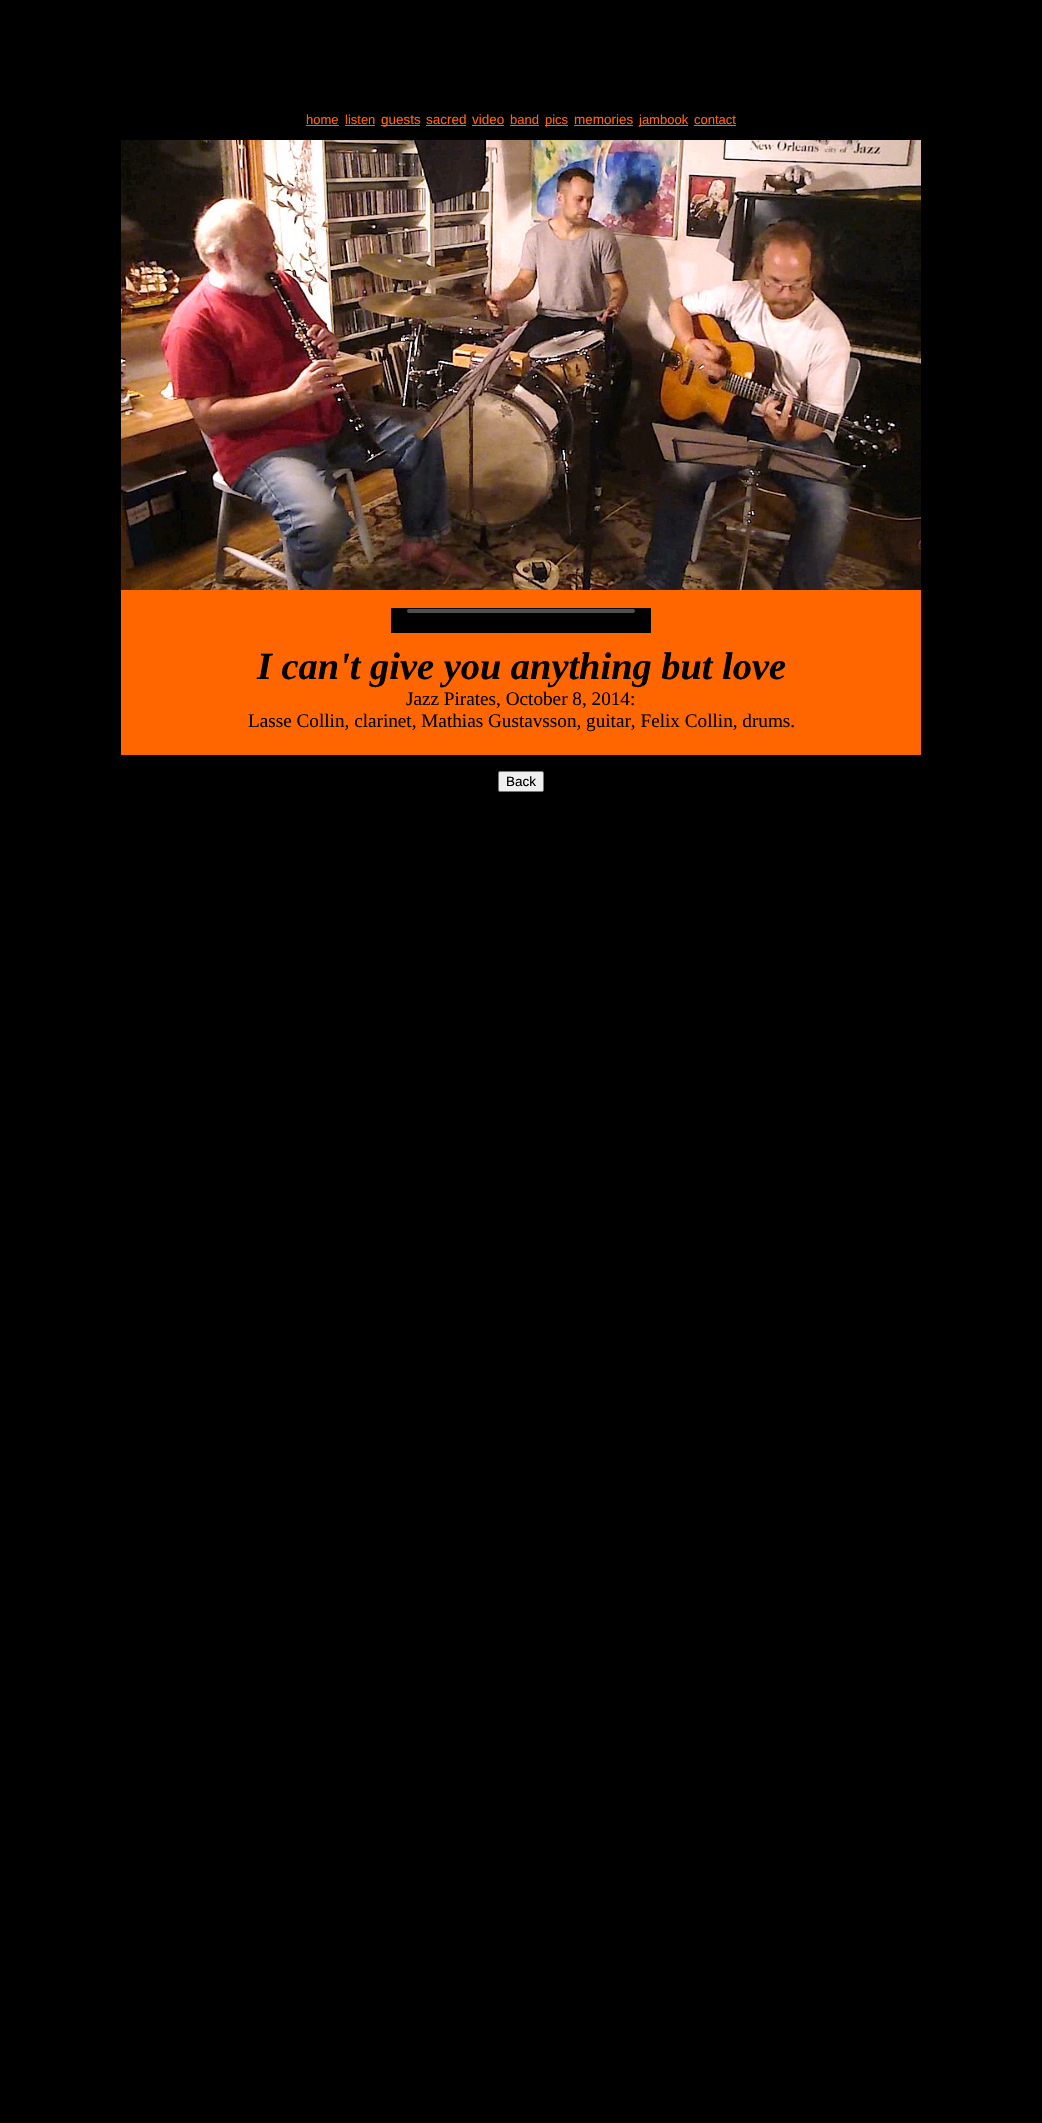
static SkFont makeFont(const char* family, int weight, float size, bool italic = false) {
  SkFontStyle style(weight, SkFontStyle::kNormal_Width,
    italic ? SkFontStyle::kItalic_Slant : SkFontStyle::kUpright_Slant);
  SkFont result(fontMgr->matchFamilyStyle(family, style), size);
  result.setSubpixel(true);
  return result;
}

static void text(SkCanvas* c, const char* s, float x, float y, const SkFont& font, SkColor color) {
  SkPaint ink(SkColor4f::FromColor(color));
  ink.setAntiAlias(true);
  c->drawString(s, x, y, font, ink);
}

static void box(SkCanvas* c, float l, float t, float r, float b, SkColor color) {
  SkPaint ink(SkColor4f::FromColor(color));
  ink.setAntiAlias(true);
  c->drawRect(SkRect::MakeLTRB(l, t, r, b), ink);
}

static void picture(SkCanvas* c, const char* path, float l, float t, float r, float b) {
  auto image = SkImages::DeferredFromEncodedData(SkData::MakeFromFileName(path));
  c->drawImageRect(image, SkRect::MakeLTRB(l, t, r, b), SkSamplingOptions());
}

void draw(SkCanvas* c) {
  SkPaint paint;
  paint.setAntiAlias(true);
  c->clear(0xff000000);
  SkFont face1 = makeFont("Liberation Sans", 400, 13);
  text(c, "home", 306, 124, face1, 0xffff6600);
  box(c, 306, 125, 339, 126, 0xffff6600);
  text(c, "listen", 345, 124, face1, 0xffff6600);
  box(c, 345, 125, 375, 126, 0xffff6600);
  box(c, 381, 125, 420, 126, 0xffff6600);
  SkFont face2 = makeFont("Liberation Sans", 400, 13.5f);
  text(c, "guests", 381, 124, face2, 0xffff6600);
  text(c, "sacred", 426, 124, face2, 0xffff6600);
  box(c, 426, 125, 466, 126, 0xffff6600);
  text(c, "video", 472, 124, face2, 0xffff6600);
  box(c, 472, 125, 504, 126, 0xffff6600);
  text(c, "band", 510, 124, face1, 0xffff6600);
  box(c, 510, 125, 539, 126, 0xffff6600);
  box(c, 545, 125, 568, 126, 0xffff6600);
  text(c, "pics", 545, 124, face1, 0xffff6600);
  text(c, "memories", 574, 124, face2, 0xffff6600);
  box(c, 574, 125, 633, 126, 0xffff6600);
  box(c, 639, 125, 688, 126, 0xffff6600);
  text(c, "jambook", 639, 124, face1, 0xffff6600);
  text(c, "contact", 694, 124, face1, 0xffff6600);
  box(c, 694, 125, 736, 126, 0xffff6600);
  box(c, 121, 590, 921, 755, 0xffff6600);
  picture(c, "img_01.png", 121, 140, 921, 590);
  picture(c, "img_02.png", 391, 608, 651, 633);
  SkFont face3 = makeFont("Liberation Serif", 700, 38.4f, true);
  text(c, "I can't give you anything but love", 257, 679, face3, 0xff000000);
  SkFont face4 = makeFont("Liberation Serif", 400, 19.2f);
  text(c, "Jazz Pirates, October 8, 2014:", 406, 705, face4, 0xff000000);
  text(c, "Lasse Collin, clarinet, Mathias Gustavsson, guitar, Felix Collin, drums.", 248, 727, face4, 0xff000000);
  paint.setColor(0xffefefef);
  c->drawRoundRect(SkRect::MakeLTRB(498.5f, 771.5f, 543.5f, 791.5f), 1.5f, 1.5f, paint);
  paint.setStyle(SkPaint::kStroke_Style);
  paint.setStrokeWidth(1);
  paint.setColor(0xff767676);
  c->drawRoundRect(SkRect::MakeLTRB(498.5f, 771.5f, 543.5f, 791.5f), 1.5f, 1.5f, paint);
  text(c, "Back", 506, 786, face2, 0xff000000);
}
